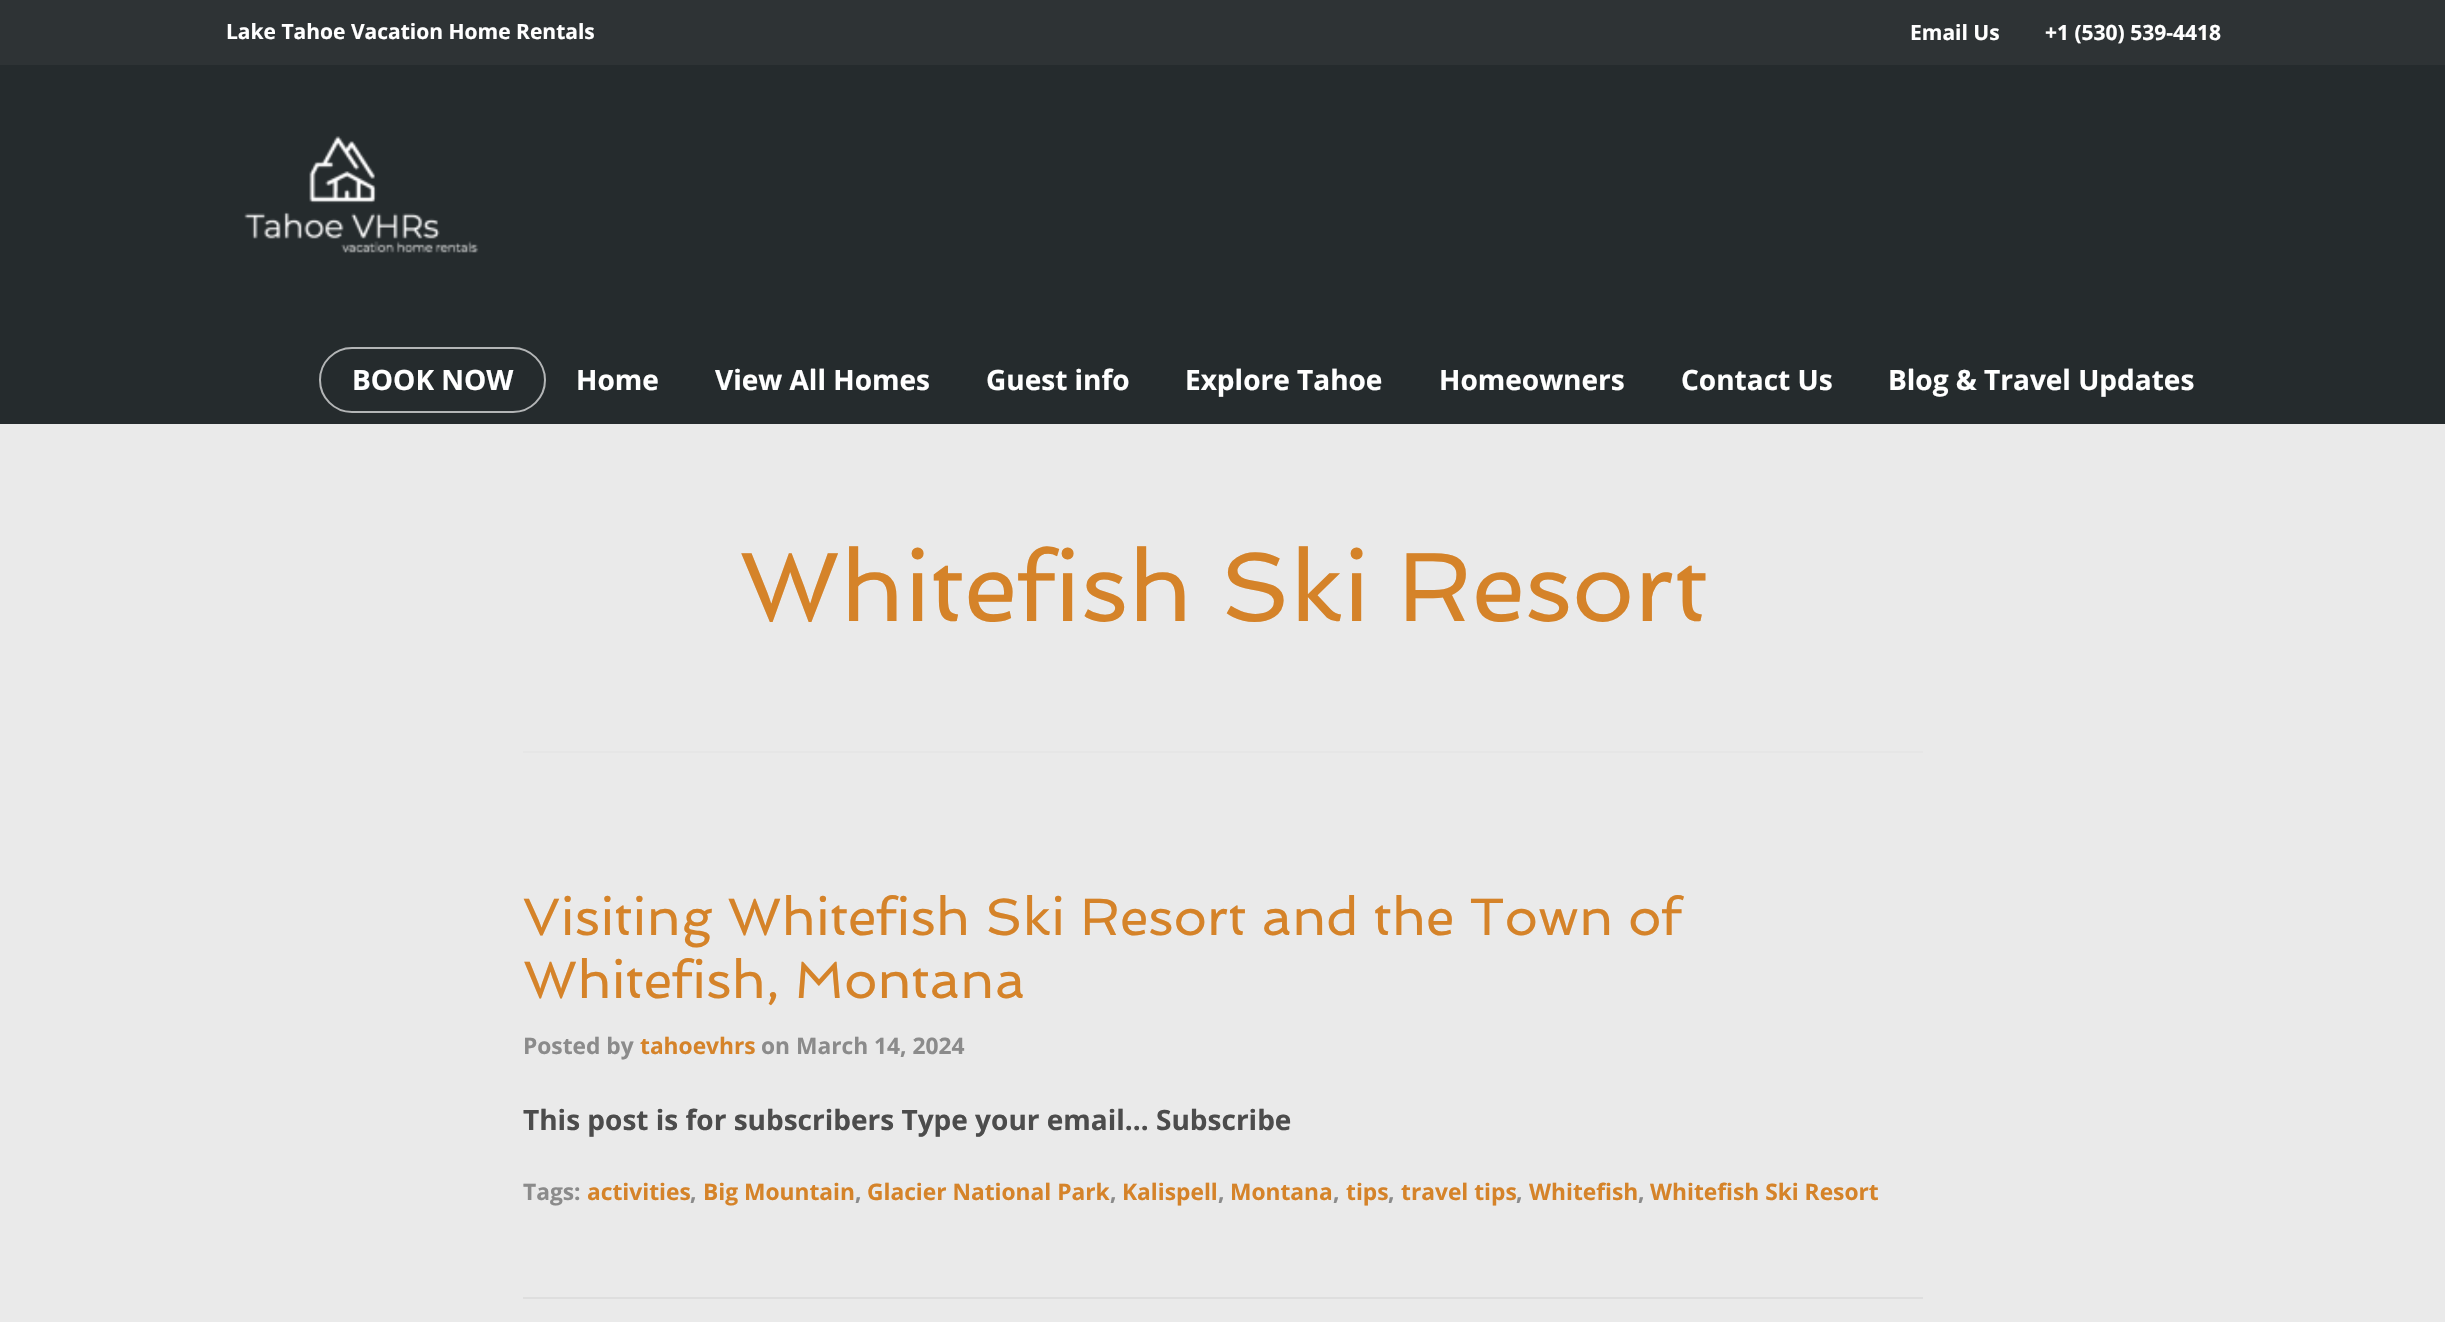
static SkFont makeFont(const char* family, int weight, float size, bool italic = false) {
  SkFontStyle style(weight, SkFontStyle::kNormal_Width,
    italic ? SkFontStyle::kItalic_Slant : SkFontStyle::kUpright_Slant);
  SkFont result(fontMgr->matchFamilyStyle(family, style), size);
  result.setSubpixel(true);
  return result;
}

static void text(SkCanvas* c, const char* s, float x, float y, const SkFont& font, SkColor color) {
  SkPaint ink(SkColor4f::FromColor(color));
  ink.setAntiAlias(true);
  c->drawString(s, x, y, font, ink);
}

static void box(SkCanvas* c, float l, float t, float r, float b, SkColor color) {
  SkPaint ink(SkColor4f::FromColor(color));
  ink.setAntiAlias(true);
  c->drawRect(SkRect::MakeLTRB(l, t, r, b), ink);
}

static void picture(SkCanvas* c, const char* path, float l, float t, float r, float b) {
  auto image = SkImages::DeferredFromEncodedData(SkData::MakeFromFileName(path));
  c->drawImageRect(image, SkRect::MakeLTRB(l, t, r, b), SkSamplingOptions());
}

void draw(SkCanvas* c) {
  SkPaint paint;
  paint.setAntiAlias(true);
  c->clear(0xffeaeaea);
  box(c, 0, 65, 2445, 424, 0xff252b2d);
  box(c, 0, 0, 2445, 65, 0xff2e3335);
  SkFont face1 = makeFont("Open Sans", 700, 21);
  text(c, "Lake Tahoe Vacation Home Rentals", 226, 39, face1, 0xffffffff);
  text(c, "Email Us", 1910, 40, face1, 0xffffffff);
  text(c, "+1 (530) 539-4418", 2045, 40, face1, 0xffffffff);
  picture(c, "img_01.png", 244, 136, 479, 253);
  paint.setStyle(SkPaint::kStroke_Style);
  paint.setStrokeWidth(2);
  paint.setColor(0xffb3b5b6);
  c->drawRoundRect(SkRect::MakeLTRB(320, 348, 545, 412), 32, 32, paint);
  SkFont face2 = makeFont("Open Sans", 700, 28);
  text(c, "BOOK NOW", 352, 390, face2, 0xffffffff);
  text(c, "Home", 576, 390, face2, 0xffffffff);
  text(c, "View All Homes", 715, 390, face2, 0xffffffff);
  text(c, "Guest info", 986, 390, face2, 0xffffffff);
  text(c, "Explore Tahoe", 1185, 390, face2, 0xffffffff);
  text(c, "Homeowners", 1439, 390, face2, 0xffffffff);
  text(c, "Contact Us", 1681, 390, face2, 0xffffffff);
  text(c, "Blog & Travel Updates", 1888, 390, face2, 0xffffffff);
  box(c, 523, 751, 1923, 753, 0xffe6e6e6);
  SkFont face3 = makeFont("Spinnaker", 400, 98);
  text(c, "Whitefish Ski Resort", 739, 621, face3, 0xffd58329);
  box(c, 523, 1297, 1923, 1299, 0xffdedede);
  SkFont face4 = makeFont("Spinnaker", 400, 52.5f);
  text(c, "Visiting Whitefish Ski Resort and the Town of", 523, 935, face4, 0xffd58329);
  text(c, "Whitefish, Montana", 523, 998, face4, 0xffd58329);
  SkFont face5 = makeFont("Open Sans", 700, 22.75f);
  text(c, "Posted by", 523, 1054, face5, 0xff8b8b8b);
  text(c, "tahoevhrs", 640, 1054, face5, 0xffd58329);
  text(c, "on March 14, 2024", 761, 1054, face5, 0xff8b8b8b);
  text(c, "This post is for subscribers Type your email… Subscribe", 523, 1130, face2, 0xff4c4c4c);
  text(c, "Tags:", 523, 1200, face5, 0xff8b8b8b);
  text(c, "activities", 587, 1200, face5, 0xffd58329);
  text(c, ",", 690, 1200, face5, 0xff8b8b8b);
  text(c, "Big Mountain", 703, 1200, face5, 0xffd58329);
  text(c, ",", 855, 1200, face5, 0xff8b8b8b);
  text(c, "Glacier National Park", 867, 1200, face5, 0xffd58329);
  text(c, ",", 1110, 1200, face5, 0xff8b8b8b);
  text(c, "Kalispell", 1122, 1200, face5, 0xffd58329);
  text(c, ",", 1218, 1200, face5, 0xff8b8b8b);
  text(c, "Montana", 1230, 1200, face5, 0xffd58329);
  text(c, ",", 1333, 1200, face5, 0xff8b8b8b);
  text(c, "tips", 1346, 1200, face5, 0xffd58329);
  text(c, ",", 1388, 1200, face5, 0xff8b8b8b);
  text(c, "travel tips", 1401, 1200, face5, 0xffd58329);
  text(c, ",", 1516, 1200, face5, 0xff8b8b8b);
  text(c, "Whitefish", 1529, 1200, face5, 0xffd58329);
  text(c, ",", 1638, 1200, face5, 0xff8b8b8b);
  text(c, "Whitefish Ski Resort", 1650, 1200, face5, 0xffd58329);
}
